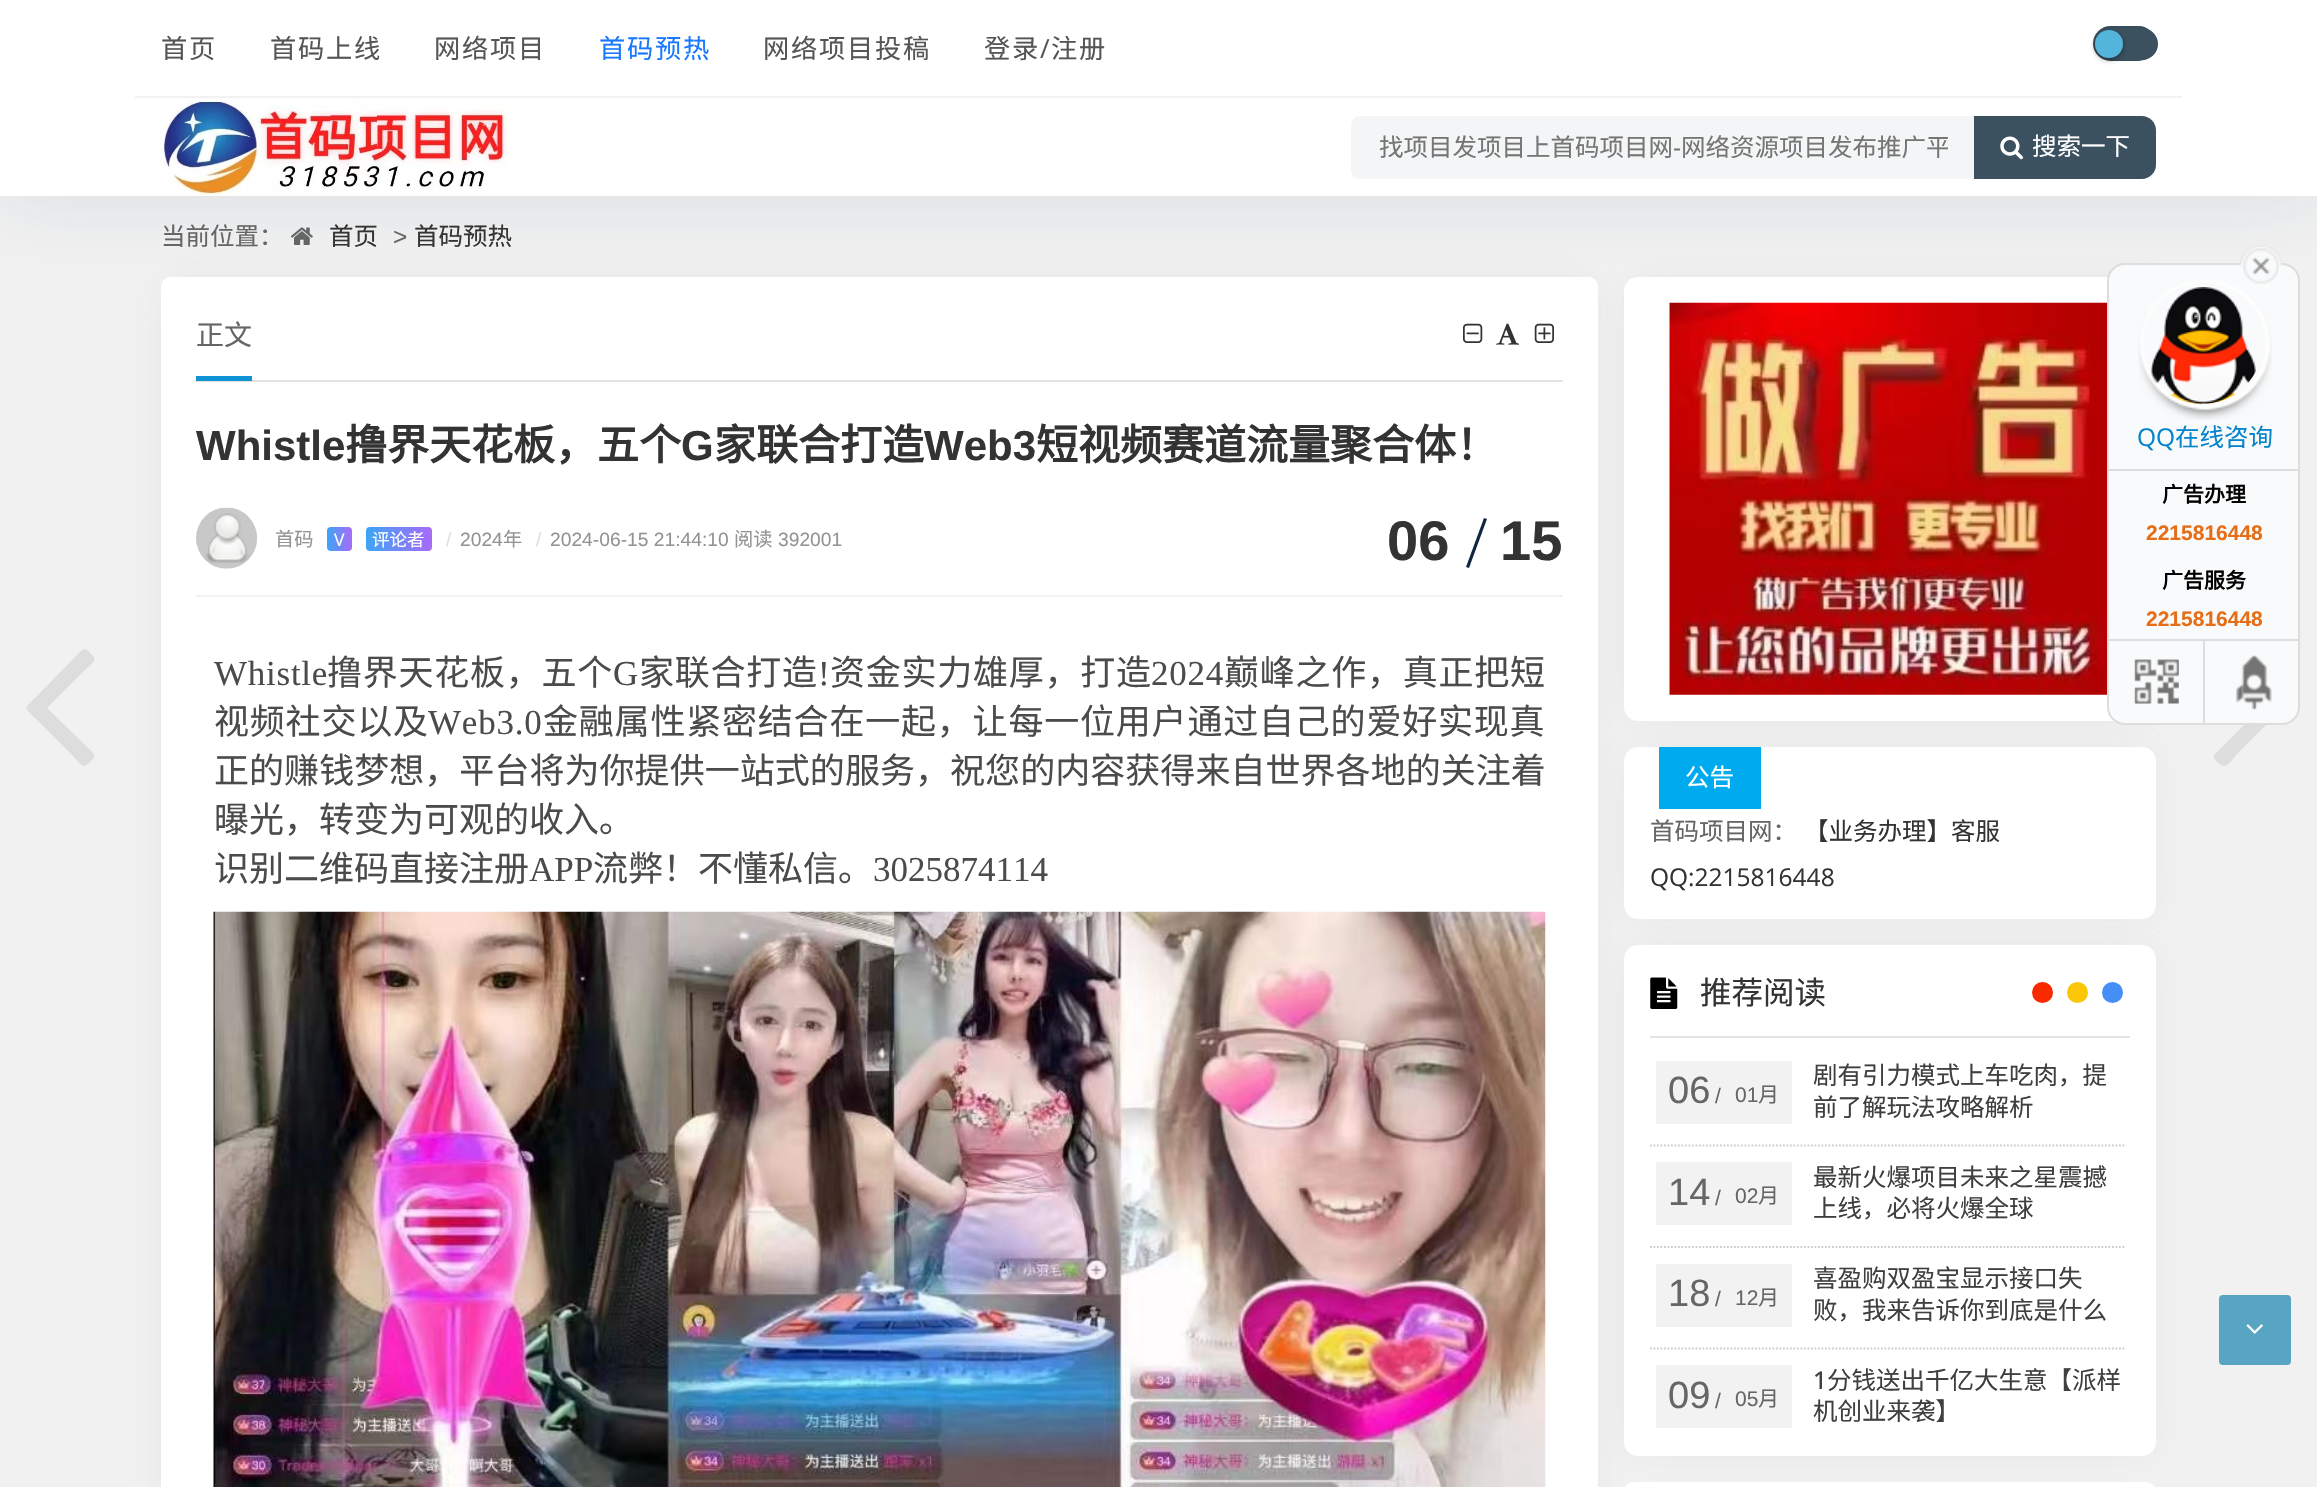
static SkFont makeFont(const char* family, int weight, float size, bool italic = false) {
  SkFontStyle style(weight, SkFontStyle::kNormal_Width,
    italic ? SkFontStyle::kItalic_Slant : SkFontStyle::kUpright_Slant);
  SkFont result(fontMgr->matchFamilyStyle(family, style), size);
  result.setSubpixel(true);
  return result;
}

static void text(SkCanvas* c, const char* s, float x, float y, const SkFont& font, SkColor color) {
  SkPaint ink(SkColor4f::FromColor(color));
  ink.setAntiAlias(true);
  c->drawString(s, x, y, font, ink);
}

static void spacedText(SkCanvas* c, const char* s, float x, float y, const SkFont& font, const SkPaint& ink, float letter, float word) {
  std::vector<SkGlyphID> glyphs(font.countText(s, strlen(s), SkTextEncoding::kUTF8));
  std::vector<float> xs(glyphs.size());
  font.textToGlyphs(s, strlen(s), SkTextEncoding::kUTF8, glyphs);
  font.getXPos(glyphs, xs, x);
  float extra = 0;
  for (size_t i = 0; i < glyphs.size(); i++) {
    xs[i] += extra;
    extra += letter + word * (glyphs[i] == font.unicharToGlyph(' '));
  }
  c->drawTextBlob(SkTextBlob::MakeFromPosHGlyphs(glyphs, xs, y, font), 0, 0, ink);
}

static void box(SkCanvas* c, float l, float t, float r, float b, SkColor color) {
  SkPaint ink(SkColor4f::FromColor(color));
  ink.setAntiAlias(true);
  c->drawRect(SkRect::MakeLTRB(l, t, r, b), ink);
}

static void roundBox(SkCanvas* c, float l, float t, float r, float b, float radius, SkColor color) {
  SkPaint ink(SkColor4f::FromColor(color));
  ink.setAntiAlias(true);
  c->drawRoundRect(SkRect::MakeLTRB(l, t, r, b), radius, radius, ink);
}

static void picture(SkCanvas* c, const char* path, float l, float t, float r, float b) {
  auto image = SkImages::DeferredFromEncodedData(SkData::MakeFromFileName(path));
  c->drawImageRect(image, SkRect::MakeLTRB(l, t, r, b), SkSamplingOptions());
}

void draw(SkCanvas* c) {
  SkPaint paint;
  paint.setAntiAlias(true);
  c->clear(0xfff1f1f1);
  paint.setColor(0x389e9e9e);
  paint.setMaskFilter(SkMaskFilter::MakeBlur(kNormal_SkBlurStyle, 17.5f));
  c->drawRect(SkRect::MakeLTRB(170, 285, 1589, 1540), paint);
  paint.setMaskFilter(nullptr);
  picture(c, "img_03.png", 290, 227, 313, 245);
  roundBox(c, 161, 277, 1598, 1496, 9, 0xffffffff);
  paint.setMaskFilter(SkMaskFilter::MakeBlur(kNormal_SkBlurStyle, 17.5f));
  c->drawRoundRect(SkRect::MakeLTRB(1633, 285, 2147, 712), 5, 5, paint);
  paint.setMaskFilter(nullptr);
  roundBox(c, 1624, 277, 2156, 721, 14, 0xffffffff);
  picture(c, "img_09.png", 1669, 302, 2107, 695);
  paint.setColor(0x1a113a5d);
  paint.setMaskFilter(SkMaskFilter::MakeBlur(kNormal_SkBlurStyle, 35));
  c->drawRect(SkRect::MakeLTRB(0, 9, 2317, 205), paint);
  paint.setMaskFilter(nullptr);
  box(c, 0, 0, 2317, 196, 0xffffffff);
  box(c, 135, 96, 2182, 98, 0xfff2f2f2);
  SkFont face1 = makeFont("Noto Sans CJK SC", 400, 26.25f);
  paint.setColor(0xff555555);
  spacedText(c, "首页", 161, 58, face1, paint, 1.75f, 0);
  spacedText(c, "首码上线", 270, 58, face1, paint, 1.75f, 0);
  spacedText(c, "网络项目", 434, 58, face1, paint, 1.75f, 0);
  paint.setColor(0xff1878ff);
  spacedText(c, "首码预热", 599, 58, face1, paint, 1.75f, 0);
  paint.setColor(0xff555555);
  spacedText(c, "网络项目投稿", 763, 58, face1, paint, 1.75f, 0);
  spacedText(c, "登录", 984, 58, face1, paint, 1.75f, 0);
  SkFont face2 = makeFont("Open Sans", 400, 26.25f);
  spacedText(c, "/", 1040, 58, face2, paint, 1.75f, 0);
  spacedText(c, "注册", 1051, 58, face1, paint, 1.75f, 0);
  paint.setColor(0xff3b5160);
  c->drawRoundRect(SkRect::MakeLTRB(2094, 27, 2155, 60), 16.5f, 16.5f, paint);
  paint.setStyle(SkPaint::kStroke_Style);
  paint.setStrokeWidth(2);
  paint.setColor(0xff394e5d);
  c->drawRoundRect(SkRect::MakeLTRB(2094, 27, 2155, 60), 16.5f, 16.5f, paint);
  roundBox(c, 2095, 28, 2158, 60, 16, 0xff3b5160);
  paint.setStyle(SkPaint::kFill_Style);
  paint.setColor(0x66000000);
  paint.setMaskFilter(SkMaskFilter::MakeBlur(kNormal_SkBlurStyle, 2.5f));
  c->drawRoundRect(SkRect::MakeLTRB(2095, 32, 2123, 60), 14, 14, paint);
  paint.setMaskFilter(nullptr);
  paint.setColor(0xff54b5db);
  c->drawCircle(2109, 44, 14, paint);
  picture(c, "img_01.png", 161, 98, 509, 196);
  paint.setColor(0xfff3f5f6);
  c->drawPath(SkPathBuilder().moveTo(1360, 116).lineTo(1976, 116).lineTo(1976, 179).lineTo(1360, 179).cubicTo(1355, 179, 1351, 175, 1351, 170).lineTo(1351, 125).cubicTo(1351, 120, 1355, 116, 1360, 116).close().detach(), paint);
  SkFont face3 = makeFont("Noto Sans CJK SC", 400, 24.5f);
  text(c, "找项目发项目上首码项目网", 1379, 156, face3, 0xff757575);
  SkFont face4 = makeFont("Liberation Sans", 400, 24.5f);
  text(c, "-", 1673, 156, face4, 0xff757575);
  c->save();
  c->clipRect(SkRect::MakeLTRB(1379, 128, 1948, 163));
  text(c, "网络资源项目发布推广平", 1681, 156, face3, 0xff757575);
  c->restore();
  paint.setColor(0xff3b5160);
  c->drawPath(SkPathBuilder().moveTo(1974, 116).lineTo(2142, 116).cubicTo(2149.5f, 116, 2156, 122.5f, 2156, 130).lineTo(2156, 165).cubicTo(2156, 172.5f, 2149.5f, 179, 2142, 179).lineTo(1974, 179).close().detach(), paint);
  picture(c, "img_02.png", 2000, 136, 2023, 160);
  text(c, "搜索一下", 2032, 155, face3, 0xffffffff);
  text(c, "当前位置：", 161, 245, face3, 0xff666666);
  text(c, "首页", 329, 245, face3, 0xff333333);
  text(c, ">", 393, 245, face4, 0xff666666);
  text(c, "首码预热", 414, 245, face3, 0xff333333);
  paint.setColor(0xffdddddd);
  c->drawPath(SkPathBuilder().moveTo(93, 656).cubicTo(98, 661, 87, 668, 86, 669).lineTo(47, 708).lineTo(86, 746).cubicTo(91, 751, 98, 754, 92, 760).cubicTo(82, 770, 84, 767, 73, 756).lineTo(37, 720).cubicTo(23, 706, 23, 710, 37, 696).lineTo(82, 650).cubicTo(86, 646, 91, 654, 93, 656).close().detach(), paint);
  box(c, 196, 380, 1563, 382, 0xffe4e3e3);
  SkFont face5 = makeFont("Noto Sans CJK SC", 400, 28);
  text(c, "正文", 196, 345, face5, 0xff666666);
  box(c, 196, 376, 252, 381, 0xff0d93d6);
  picture(c, "img_04.png", 1463, 323, 1483, 343);
  picture(c, "img_05.png", 1496, 323, 1519, 345);
  picture(c, "img_06.png", 1534, 323, 1554, 343);
  SkFont face6 = makeFont("Liberation Sans", 700, 42);
  text(c, "Whistle", 196, 460, face6, 0xff333333);
  SkFont face7 = makeFont("Noto Sans CJK SC", 700, 42);
  text(c, "撸界天花板，五个", 345, 460, face7, 0xff333333);
  text(c, "G", 681, 460, face6, 0xff333333);
  text(c, "家联合打造", 714, 460, face7, 0xff333333);
  text(c, "Web3", 924, 460, face6, 0xff333333);
  text(c, "短视频赛道流量聚合体！", 1036, 460, face7, 0xff333333);
  picture(c, "img_07.png", 196, 507, 258, 569);
  SkFont face8 = makeFont("Noto Sans CJK SC", 400, 19.25f);
  text(c, "首码", 275, 546, face8, 0xff939393);
  {
    const SkColor colors[] = {0xff3ca5f6, 0xffa86af9};
    const float stops[] = {0, 1};
    const SkPoint ends[] = {{327, 539}, {352, 539}};
    paint.setShader(SkGradientShader::MakeLinear(ends, colors, stops, 2, SkTileMode::kClamp));
    paint.setAlpha(255);
  }
  c->drawRoundRect(SkRect::MakeLTRB(327, 527, 352, 551), 4, 4, paint);
  SkFont face9 = makeFont("Open Sans", 400, 17.5f);
  text(c, "V", 334, 546, face9, 0xffffffff);
  {
    const SkColor colors[] = {0xff3ca5f6, 0xffa86af9};
    const float stops[] = {0, 1};
    const SkPoint ends[] = {{366, 539}, {432, 539}};
    paint.setShader(SkGradientShader::MakeLinear(ends, colors, stops, 2, SkTileMode::kClamp));
    paint.setAlpha(255);
  }
  c->drawRoundRect(SkRect::MakeLTRB(366, 527, 432, 551), 4, 4, paint);
  SkFont face10 = makeFont("Noto Sans CJK SC", 400, 17.5f);
  text(c, "评论者", 372, 546, face10, 0xffffffff);
  SkFont face11 = makeFont("Liberation Sans", 400, 19.25f);
  text(c, "/", 446, 546, face11, 0xffe1e1e1);
  text(c, "2024", 460, 546, face11, 0xff939393);
  text(c, "年", 503, 546, face8, 0xff939393);
  text(c, "/", 536, 546, face11, 0xffe1e1e1);
  text(c, "2024-06-15 21:44:10", 550, 546, face11, 0xff939393);
  text(c, "阅读", 734, 546, face8, 0xff939393);
  text(c, "392001", 778, 546, face11, 0xff939393);
  paint.setShader(nullptr);
  paint.setColor(0xff0f2540);
  c->drawPath(SkPathBuilder().moveTo(1484, 518).lineTo(1487, 519).lineTo(1469, 568).lineTo(1466, 567).close().detach(), paint);
  SkFont face12 = makeFont("Liberation Sans", 700, 56);
  text(c, "06", 1387, 560, face12, 0xff333333);
  text(c, "15", 1500, 560, face12, 0xff333333);
  box(c, 196, 595, 1563, 597, 0xfff2f2f2);
  SkFont face13 = makeFont("Liberation Serif", 400, 35);
  paint.setColor(0xff4b4b4b);
  spacedText(c, "Whistle", 214, 685, face13, paint, 0.75f, 0);
  SkFont face14 = makeFont("Noto Sans CJK SC", 400, 35);
  spacedText(c, "撸界天花板，五个", 327, 685, face14, paint, 0.75f, 0);
  spacedText(c, "G", 613, 685, face13, paint, 0.75f, 0);
  spacedText(c, "家联合打造", 639, 685, face14, paint, 0.75f, 0);
  spacedText(c, "!", 818, 685, face13, paint, 0.75f, 0);
  spacedText(c, "资金实力雄厚，打造", 830, 685, face14, paint, 0.75f, 0);
  spacedText(c, "2024", 1151, 685, face13, paint, 0.75f, 0);
  spacedText(c, "巅峰之作，真正把短", 1224, 685, face14, paint, 0.75f, 0);
  spacedText(c, "视频社交以及", 214, 734, face14, paint, 0.8f, 0);
  spacedText(c, "Web3.0", 428, 734, face13, paint, 0.8f, 0);
  spacedText(c, "金融属性紧密结合在一起，让每一位用户通过自己的爱好实现真", 543, 734, face14, paint, 0.8f, 0);
  spacedText(c, "正的赚钱梦想，平台将为你提供一站式的服务，祝您的内容获得来自世界各地的关注着", 214, 783, face14, paint, 0.05f, 0);
  text(c, "曝光，转变为可观的收入。", 214, 832, face14, 0xff4b4b4b);
  text(c, "识别二维码直接注册", 214, 881, face14, 0xff4b4b4b);
  text(c, "APP", 529, 881, face13, 0xff4b4b4b);
  text(c, "流弊！不懂私信。", 593, 881, face14, 0xff4b4b4b);
  text(c, "3025874114", 873, 881, face13, 0xff4b4b4b);
  picture(c, "img_08.png", 213, 911, 1546, 1487);
  paint.setColor(0xffdddddd);
  c->drawPath(SkPathBuilder().moveTo(2281, 705).cubicTo(2286, 710, 2272, 719, 2271, 720).lineTo(2235, 756).cubicTo(2235, 756, 2226, 770, 2221, 765).lineTo(2217, 762).cubicTo(2215, 759, 2212, 757, 2215, 754).lineTo(2261, 708).lineTo(2222, 669).cubicTo(2215, 662, 2210, 661, 2217, 654).cubicTo(2226, 645, 2225, 649, 2235, 660).close().detach(), paint);
  paint.setColor(0x389e9e9e);
  paint.setMaskFilter(SkMaskFilter::MakeBlur(kNormal_SkBlurStyle, 17.5f));
  c->drawRoundRect(SkRect::MakeLTRB(1633, 756, 2147, 910), 5, 5, paint);
  paint.setMaskFilter(nullptr);
  roundBox(c, 1624, 747, 2156, 919, 14, 0xffffffff);
  box(c, 1659, 747, 1761, 809, 0xff00aaee);
  text(c, "公告", 1685, 786, face3, 0xffffffff);
  text(c, "首码项目网：", 1650, 840, face3, 0xff666666);
  text(c, "【业务办理】客服", 1804, 840, face3, 0xff333333);
  SkFont face15 = makeFont("Open Sans", 400, 24.5f);
  text(c, "QQ:2215816448", 1650, 886, face15, 0xff333333);
  paint.setMaskFilter(SkMaskFilter::MakeBlur(kNormal_SkBlurStyle, 17.5f));
  c->drawRoundRect(SkRect::MakeLTRB(1633, 954, 2147, 1447), 5, 5, paint);
  paint.setMaskFilter(nullptr);
  roundBox(c, 1624, 945, 2156, 1456, 14, 0xffffffff);
  box(c, 1650, 1036, 2130, 1038, 0xffe4e4e4);
  picture(c, "img_10.png", 1650, 977, 1678, 1009);
  SkFont face16 = makeFont("Noto Sans CJK SC", 400, 31.5f);
  text(c, "推荐阅读", 1700, 1004, face16, 0xff333333);
  paint.setColor(0xff448ef6);
  c->drawCircle(2112.5f, 992.5f, 10.5f, paint);
  paint.setColor(0xfffbc606);
  c->drawCircle(2077.5f, 992.5f, 10.5f, paint);
  paint.setColor(0xfff92900);
  c->drawCircle(2042.5f, 992.5f, 10.5f, paint);
  paint.setStyle(SkPaint::kStroke_Style);
  paint.setStrokeWidth(1.8f);
  paint.setColor(0xffcbcbcb);
  paint.setPathEffect(SkDashPathEffect::Make({{1.75f, 1.75f}}, 0));
  c->drawPath(SkPathBuilder().moveTo(1650, 1145.5f).lineTo(2124.5f, 1145.5f).detach(), paint);
  paint.setPathEffect(nullptr);
  box(c, 1656, 1061, 1792, 1124, 0xfff2f2f2);
  SkFont face17 = makeFont("Liberation Sans", 400, 38);
  text(c, "06", 1668, 1103, face17, 0xff666666);
  SkFont face18 = makeFont("Liberation Sans", 400, 21);
  text(c, "/", 1715, 1103, face18, 0xff666666);
  text(c, "01", 1735, 1102, face18, 0xff666666);
  SkFont face19 = makeFont("Noto Sans CJK SC", 400, 21);
  text(c, "月", 1758, 1102, face19, 0xff666666);
  text(c, "剧有引力模式上车吃肉，提", 1813, 1084, face3, 0xff3f3f3f);
  text(c, "前了解玩法攻略解析", 1813, 1116, face3, 0xff3f3f3f);
  paint.setPathEffect(SkDashPathEffect::Make({{1.75f, 1.75f}}, 0));
  c->drawPath(SkPathBuilder().moveTo(1650, 1247).lineTo(2124.5f, 1247).detach(), paint);
  paint.setPathEffect(nullptr);
  box(c, 1656, 1162, 1792, 1225, 0xfff2f2f2);
  text(c, "14", 1668, 1205, face17, 0xff666666);
  text(c, "/", 1715, 1205, face18, 0xff666666);
  text(c, "02", 1735, 1203, face18, 0xff666666);
  text(c, "月", 1758, 1203, face19, 0xff666666);
  text(c, "最新火爆项目未来之星震撼", 1813, 1186, face3, 0xff3f3f3f);
  text(c, "上线，必将火爆全球", 1813, 1217, face3, 0xff3f3f3f);
  paint.setPathEffect(SkDashPathEffect::Make({{1.75f, 1.75f}}, 0));
  c->drawPath(SkPathBuilder().moveTo(1650, 1348.5f).lineTo(2124.5f, 1348.5f).detach(), paint);
  paint.setPathEffect(nullptr);
  box(c, 1656, 1264, 1792, 1327, 0xfff2f2f2);
  text(c, "18", 1668, 1306, face17, 0xff666666);
  text(c, "/", 1715, 1306, face18, 0xff666666);
  text(c, "12", 1735, 1305, face18, 0xff666666);
  text(c, "月", 1758, 1305, face19, 0xff666666);
  text(c, "喜盈购双盈宝显示接口失", 1813, 1287, face3, 0xff3f3f3f);
  text(c, "败，我来告诉你到底是什么", 1813, 1319, face3, 0xff3f3f3f);
  box(c, 1656, 1365, 1792, 1428, 0xfff2f2f2);
  text(c, "09", 1668, 1408, face17, 0xff666666);
  text(c, "/", 1715, 1408, face18, 0xff666666);
  text(c, "05", 1735, 1406, face18, 0xff666666);
  text(c, "月", 1758, 1406, face19, 0xff666666);
  SkFont face20 = makeFont("Open Sans", 500, 24.5f);
  text(c, "1", 1813, 1389, face20, 0xff3f3f3f);
  text(c, "分钱送出千亿大生意【派样", 1827, 1389, face3, 0xff3f3f3f);
  text(c, "机创业来袭】", 1813, 1420, face3, 0xff3f3f3f);
  roundBox(c, 1624, 1482, 2156, 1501, 14, 0xffffffff);
  paint.setStyle(SkPaint::kFill_Style);
  paint.setColor(0xfff9fafb);
  c->drawRoundRect(SkRect::MakeLTRB(2108, 264, 2299, 724), 17, 17, paint);
  paint.setStyle(SkPaint::kStroke_Style);
  paint.setStrokeWidth(2);
  paint.setColor(0xffdddddd);
  c->drawRoundRect(SkRect::MakeLTRB(2108, 264, 2299, 724), 17, 17, paint);
  picture(c, "img_13.png", 2150, 287, 2256, 405);
  picture(c, "img_12.png", 2138, 280, 2272, 420);
  picture(c, "img_11.png", 2240, 245, 2282, 284);
  box(c, 2109, 469, 2300, 471, 0xffdddddd);
  text(c, "QQ", 2137, 446, face15, 0xff0484cd);
  text(c, "在线咨询", 2175, 446, face3, 0xff0484cd);
  box(c, 2109, 639, 2300, 641, 0xffdddddd);
  SkFont face21 = makeFont("Noto Sans CJK SC", 700, 21);
  text(c, "广告办理", 2162, 502, face21, 0xff000000);
  SkFont face22 = makeFont("Liberation Sans", 700, 21);
  text(c, "2215816448", 2146, 540, face22, 0xffe66d15);
  text(c, "广告服务", 2162, 588, face21, 0xff000000);
  text(c, "2215816448", 2146, 626, face22, 0xffe66d15);
  picture(c, "img_14.png", 2134, 659, 2179, 704);
  box(c, 2203, 641, 2205, 723, 0xffdddddd);
  picture(c, "img_15.png", 2236, 655, 2272, 710);
  roundBox(c, 2219, 1295, 2291, 1365, 4, 0xff58a5c3);
  picture(c, "img_16.png", 2246, 1324, 2263, 1334);
}
